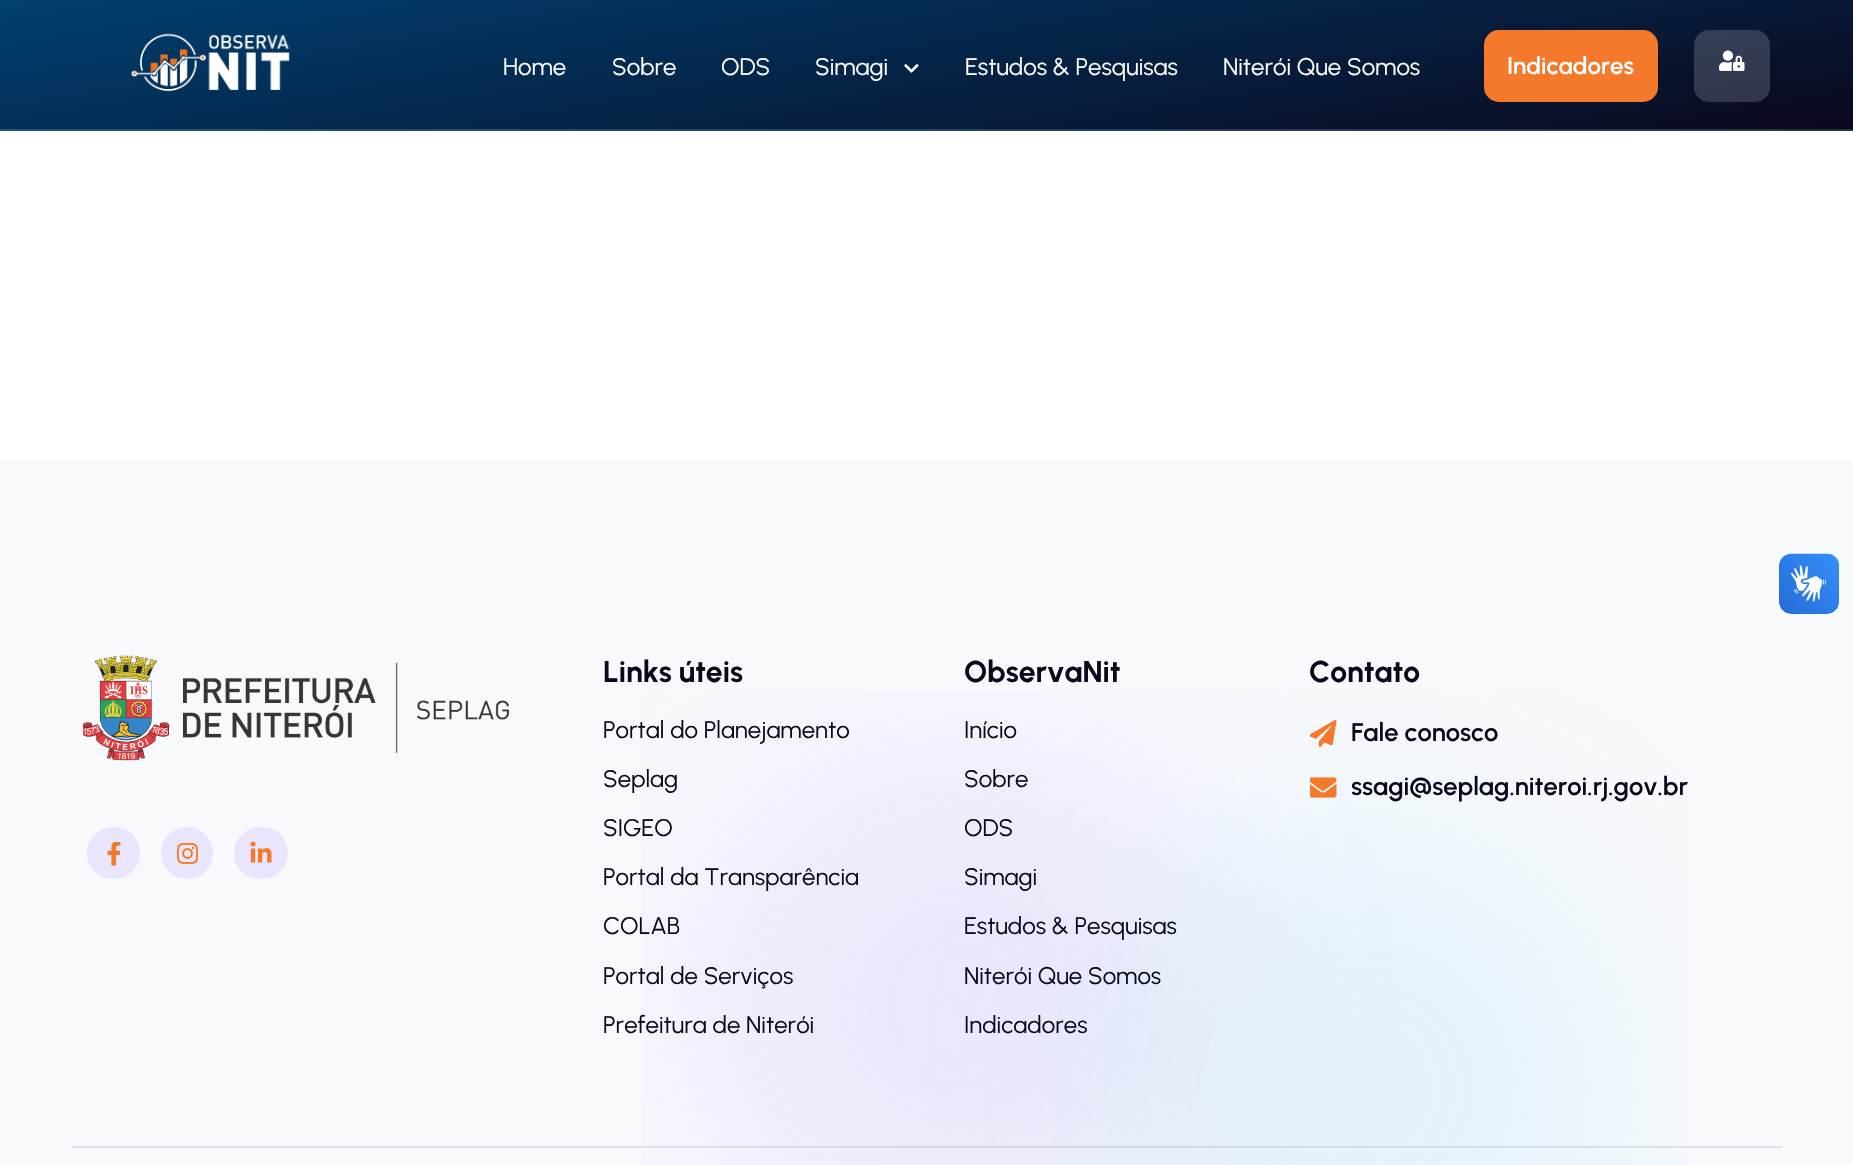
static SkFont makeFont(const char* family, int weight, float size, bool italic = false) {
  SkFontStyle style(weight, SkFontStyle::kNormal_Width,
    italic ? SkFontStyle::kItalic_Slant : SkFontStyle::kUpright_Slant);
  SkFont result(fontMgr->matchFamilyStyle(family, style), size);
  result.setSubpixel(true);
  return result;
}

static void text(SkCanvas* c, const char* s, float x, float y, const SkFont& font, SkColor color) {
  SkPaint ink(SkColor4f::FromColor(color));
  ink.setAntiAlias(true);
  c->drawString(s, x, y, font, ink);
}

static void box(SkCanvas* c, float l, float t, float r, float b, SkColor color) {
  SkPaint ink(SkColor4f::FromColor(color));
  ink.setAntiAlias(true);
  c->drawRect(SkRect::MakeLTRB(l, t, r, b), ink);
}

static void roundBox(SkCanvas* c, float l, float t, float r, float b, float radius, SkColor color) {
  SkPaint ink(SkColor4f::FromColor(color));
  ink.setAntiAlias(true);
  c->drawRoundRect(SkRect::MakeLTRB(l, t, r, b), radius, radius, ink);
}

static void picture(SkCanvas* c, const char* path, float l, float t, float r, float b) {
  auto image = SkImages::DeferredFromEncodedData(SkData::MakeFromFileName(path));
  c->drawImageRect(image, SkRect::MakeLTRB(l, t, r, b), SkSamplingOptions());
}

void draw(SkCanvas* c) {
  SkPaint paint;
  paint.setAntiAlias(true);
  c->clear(0xfff7f9fc);
  {
    const SkColor colors[] = {0xff004071, 0xff0b081d};
    const float stops[] = {0, 1};
    const SkPoint ends[] = {{888, -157}, {966, 286}};
    paint.setShader(SkGradientShader::MakeLinear(ends, colors, stops, 2, SkTileMode::kClamp));
    paint.setAlpha(255);
  }
  c->drawRect(SkRect::MakeLTRB(0, 0, 1853, 129), paint);
  {
    const SkColor colors[] = {0xff004071, 0xff0b081d};
    const float stops[] = {0, 1};
    const SkPoint ends[] = {{888, -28}, {966, 415}};
    paint.setShader(SkGradientShader::MakeLinear(ends, colors, stops, 2, SkTileMode::kClamp));
    paint.setAlpha(255);
  }
  c->drawRect(SkRect::MakeLTRB(0, 129, 1853, 131), paint);
  box(c, 0, 129, 1853, 131, 0x1cffffff);
  picture(c, "img_01.png", 131, 33, 290, 91);
  SkFont face1 = makeFont("Urbanist", 400, 24);
  text(c, "Home", 503, 75, face1, 0xffffffff);
  text(c, "Sobre", 612, 75, face1, 0xffffffff);
  text(c, "ODS", 721, 75, face1, 0xffffffff);
  text(c, "Simagi", 815, 75, face1, 0xffffffff);
  picture(c, "img_02.png", 904, 64, 919, 73);
  text(c, "Estudos & Pesquisas", 965, 75, face1, 0xffffffff);
  text(c, "Niterói Que Somos", 1223, 75, face1, 0xffffffff);
  roundBox(c, 1484, 30, 1658, 102, 15, 0xfff4792a);
  SkFont face2 = makeFont("Urbanist", 600, 24);
  text(c, "Indicadores", 1507, 74, face2, 0xffffffff);
  roundBox(c, 1694, 30, 1770, 102, 15, 0x2bffffff);
  picture(c, "img_03.png", 1719, 50, 1745, 71);
  picture(c, "img_04.png", 0, 131, 1853, 460);
  picture(c, "img_05.png", 1779, 553, 1839, 614);
  picture(c, "img_06.png", 1779, 554, 1839, 614);
  picture(c, "img_07.png", 82, 655, 509, 761);
  roundBox(c, 87, 827, 140, 879, 26, 0xffe8e5fc);
  picture(c, "img_08.png", 107, 842, 121, 866);
  paint.setShader(nullptr);
  paint.setColor(0xffe8e5fc);
  c->drawCircle(187, 853, 26, paint);
  picture(c, "img_09.png", 177, 843, 198, 864);
  roundBox(c, 234, 827, 288, 879, 26, 0xffe8e5fc);
  picture(c, "img_10.png", 250, 842, 272, 863);
  SkFont face3 = makeFont("Urbanist", 700, 30);
  text(c, "Links úteis", 603, 682, face3, 0xff0b081d);
  picture(c, "img_13.png", 641, 692, 1688, 1165);
  text(c, "Portal do Planejamento", 603, 738, face1, 0xff0b081d);
  text(c, "Seplag", 603, 787, face1, 0xff0b081d);
  text(c, "SIGEO", 603, 836, face1, 0xff0b081d);
  text(c, "Portal da Transparência", 603, 885, face1, 0xff0b081d);
  text(c, "COLAB", 603, 934, face1, 0xff0b081d);
  text(c, "Portal de Serviços", 603, 984, face1, 0xff0b081d);
  text(c, "Prefeitura de Niterói", 603, 1033, face1, 0xff0b081d);
  text(c, "ObservaNit", 964, 682, face3, 0xff0b081d);
  text(c, "Início", 964, 738, face1, 0xff0b081d);
  text(c, "Sobre", 964, 787, face1, 0xff0b081d);
  text(c, "ODS", 964, 836, face1, 0xff0b081d);
  text(c, "Simagi", 964, 885, face1, 0xff0b081d);
  text(c, "Estudos & Pesquisas", 964, 934, face1, 0xff0b081d);
  text(c, "Niterói Que Somos", 964, 984, face1, 0xff0b081d);
  text(c, "Indicadores", 964, 1033, face1, 0xff0b081d);
  text(c, "Contato", 1309, 682, face3, 0xff0b081d);
  picture(c, "img_11.png", 1310, 720, 1337, 747);
  SkFont face4 = makeFont("Urbanist", 600, 25.5f);
  text(c, "Fale conosco", 1351, 741, face4, 0xff0b081d);
  picture(c, "img_12.png", 1310, 777, 1337, 798);
  text(c, "ssagi@seplag.niteroi.rj.gov.br", 1351, 795, face4, 0xff0b081d);
  box(c, 72, 1146, 1782, 1148, 0x170b081d);
}
